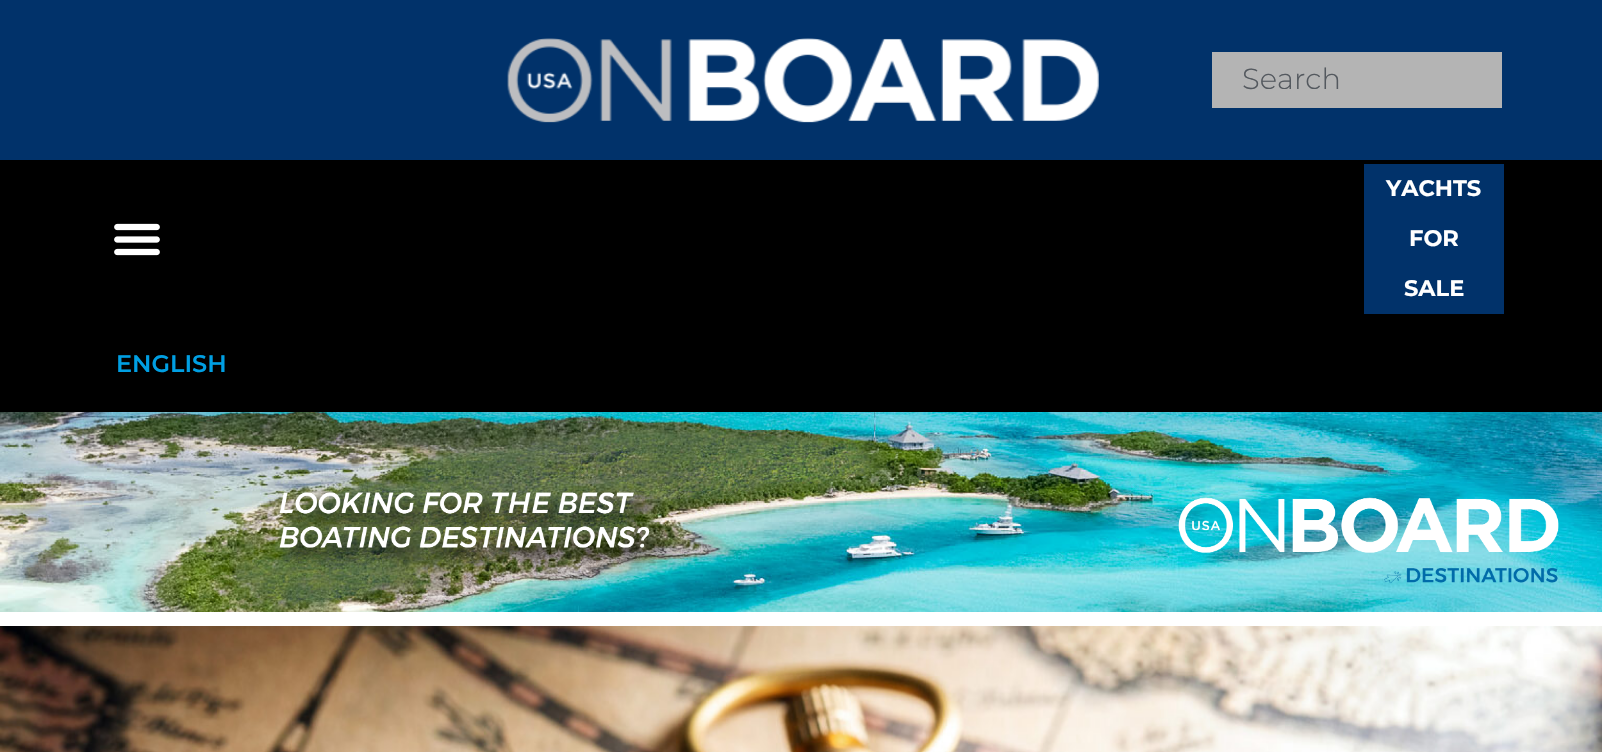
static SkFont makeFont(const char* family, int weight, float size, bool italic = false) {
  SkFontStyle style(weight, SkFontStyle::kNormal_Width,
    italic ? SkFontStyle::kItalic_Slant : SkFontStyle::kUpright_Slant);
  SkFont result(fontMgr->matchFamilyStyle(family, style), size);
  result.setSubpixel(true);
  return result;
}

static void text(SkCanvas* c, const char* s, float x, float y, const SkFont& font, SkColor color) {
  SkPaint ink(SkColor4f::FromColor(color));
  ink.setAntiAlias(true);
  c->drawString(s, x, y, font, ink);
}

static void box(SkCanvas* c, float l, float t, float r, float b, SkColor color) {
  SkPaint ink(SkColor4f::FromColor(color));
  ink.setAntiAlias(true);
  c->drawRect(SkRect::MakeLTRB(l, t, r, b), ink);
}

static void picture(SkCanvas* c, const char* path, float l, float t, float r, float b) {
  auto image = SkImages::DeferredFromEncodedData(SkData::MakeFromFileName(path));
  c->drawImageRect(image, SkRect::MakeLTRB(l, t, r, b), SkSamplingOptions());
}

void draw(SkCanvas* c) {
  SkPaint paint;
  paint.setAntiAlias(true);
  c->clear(0xffffffff);
  box(c, 0, 0, 1602, 160, 0xff01326a);
  picture(c, "img_01.png", 507, 38, 1099, 123);
  box(c, 1212, 52, 1502, 108, 0xffb4b4b4);
  SkFont face1 = makeFont("Montserrat", 300, 29);
  text(c, "Search", 1242, 89, face1, 0xff54595f);
  box(c, 0, 160, 1602, 412, 0xff000000);
  picture(c, "img_02.png", 114, 223, 160, 256);
  box(c, 1364, 164, 1504, 314, 0xff01326a);
  SkFont face2 = makeFont("Montserrat", 700, 22.5f);
  text(c, "YACHTS", 1386, 196, face2, 0xffffffff);
  text(c, "FOR", 1409, 246, face2, 0xffffffff);
  text(c, "SALE", 1404, 296, face2, 0xffffffff);
  SkFont face3 = makeFont("Montserrat", 600, 24);
  text(c, "ENGLISH", 116, 372, face3, 0xff009fe3);
  picture(c, "img_03.png", 0, 412, 1602, 612);
  picture(c, "img_04.png", 0, 626, 1602, 752);
}
